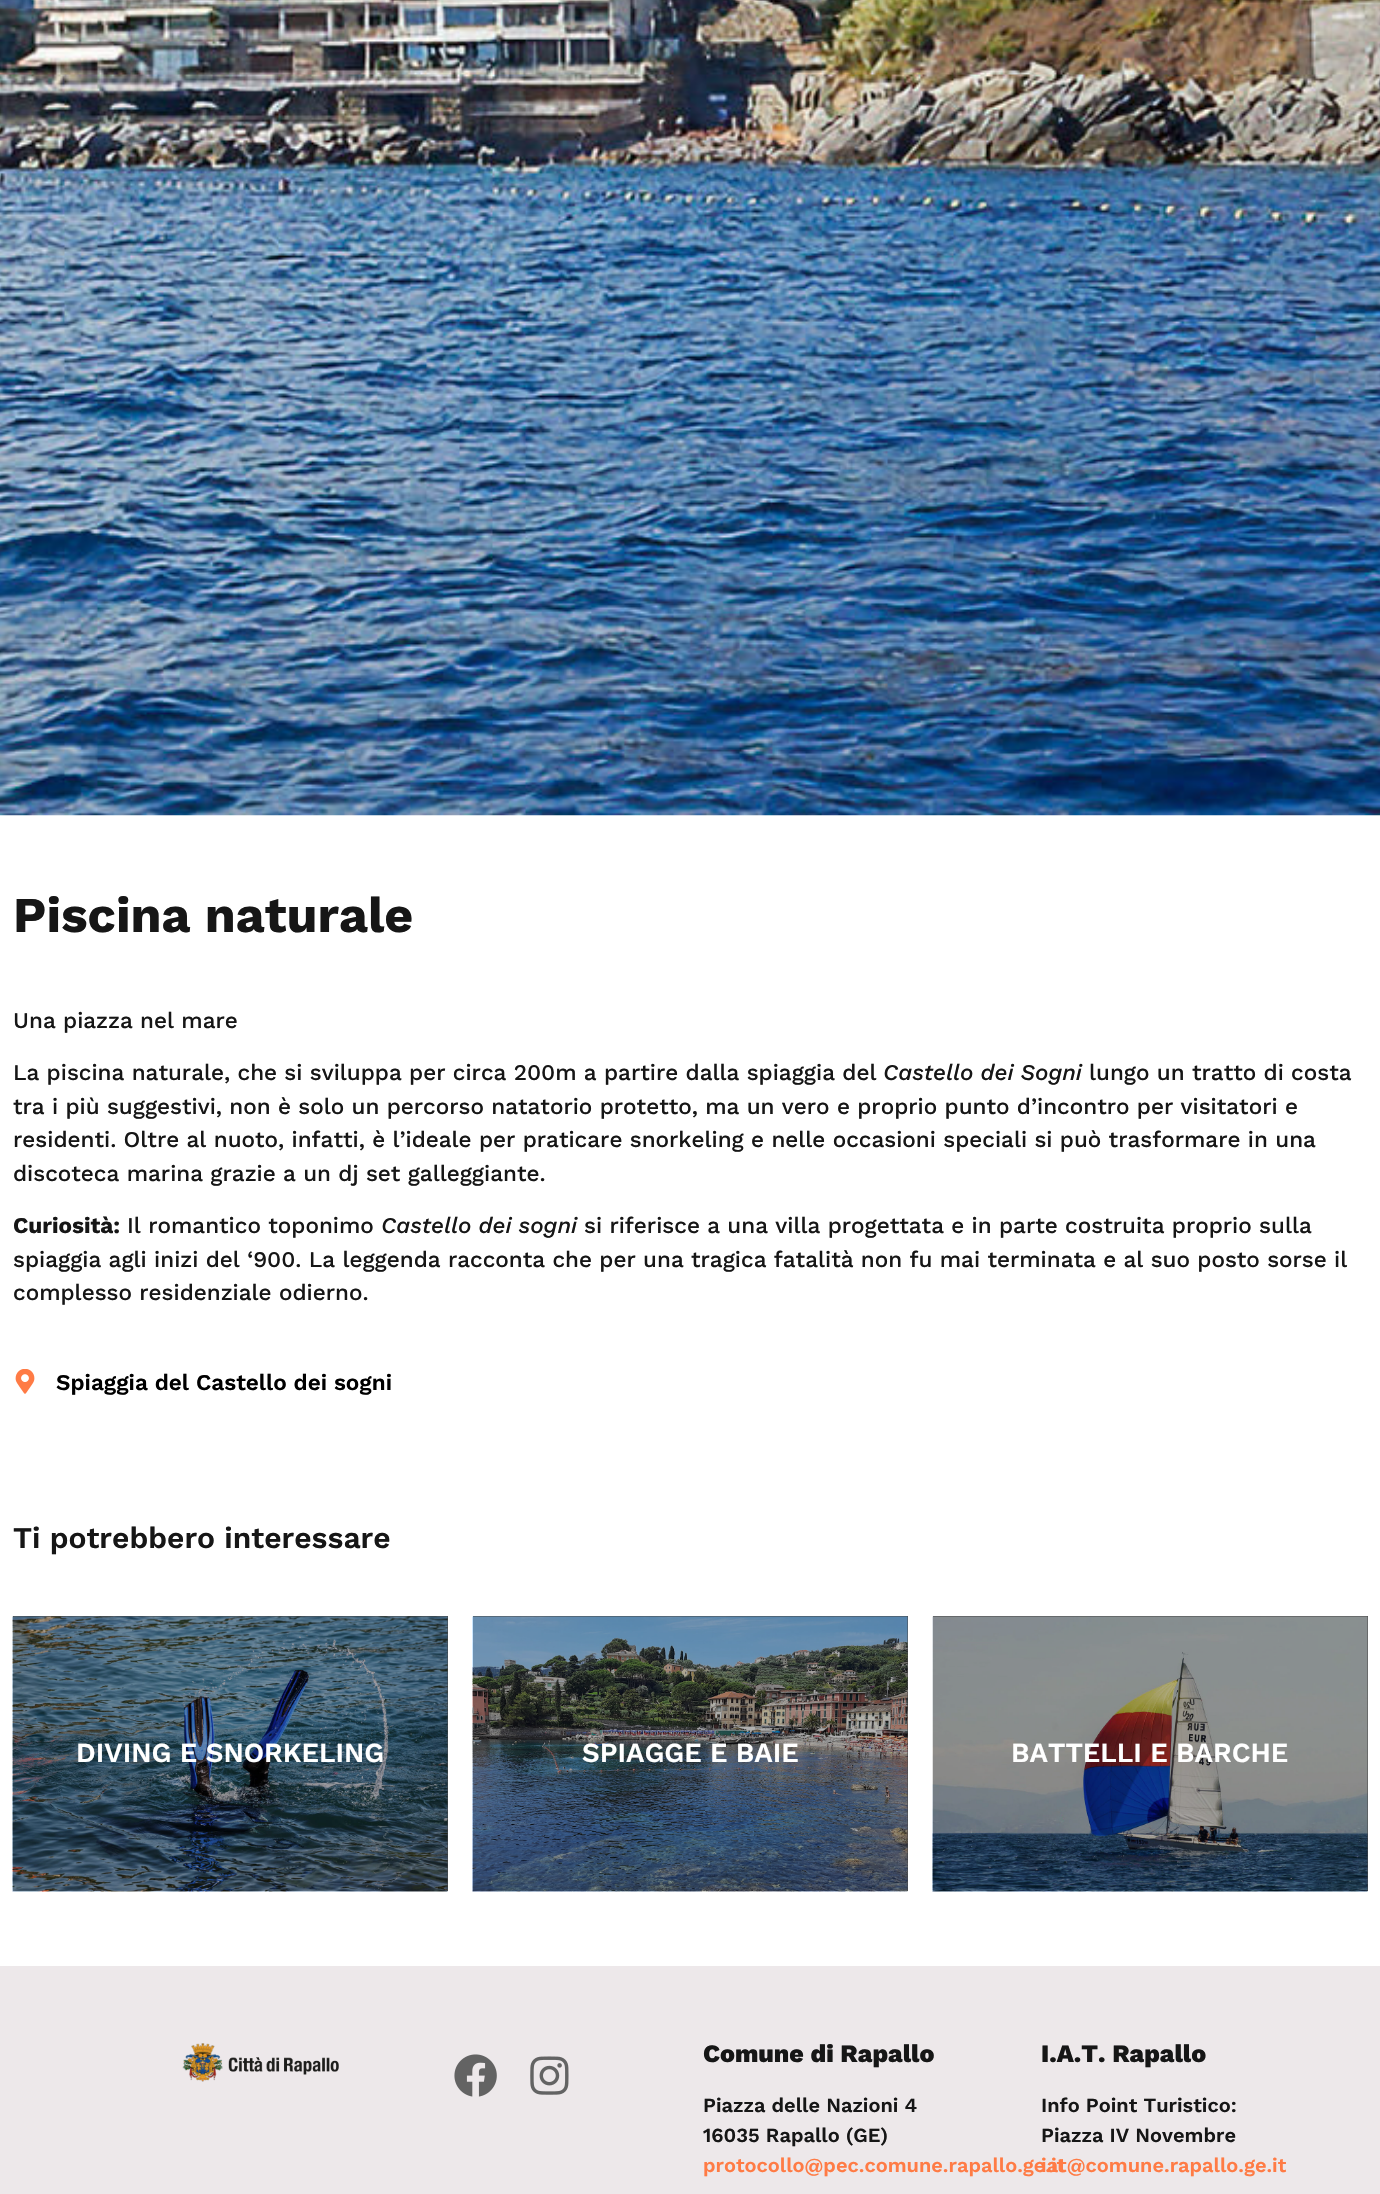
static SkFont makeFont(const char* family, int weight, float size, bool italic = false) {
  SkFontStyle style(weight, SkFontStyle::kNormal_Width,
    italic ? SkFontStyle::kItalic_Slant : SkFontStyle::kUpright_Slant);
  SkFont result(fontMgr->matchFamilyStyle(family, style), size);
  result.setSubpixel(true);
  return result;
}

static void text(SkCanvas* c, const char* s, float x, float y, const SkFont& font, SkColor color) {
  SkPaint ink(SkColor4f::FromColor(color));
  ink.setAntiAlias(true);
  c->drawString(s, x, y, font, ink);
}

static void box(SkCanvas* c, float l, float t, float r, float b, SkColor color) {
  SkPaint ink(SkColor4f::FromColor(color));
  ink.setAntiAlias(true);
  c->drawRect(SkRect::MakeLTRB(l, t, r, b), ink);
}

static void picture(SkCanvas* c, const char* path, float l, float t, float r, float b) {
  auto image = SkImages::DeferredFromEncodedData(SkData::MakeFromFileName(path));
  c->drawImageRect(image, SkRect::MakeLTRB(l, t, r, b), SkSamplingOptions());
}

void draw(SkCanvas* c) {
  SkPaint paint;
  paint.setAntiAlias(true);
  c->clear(0xffffffff);
  picture(c, "img_01.png", 0, 0, 1380, 816);
  SkFont face1 = makeFont("Work Sans", 700, 50);
  text(c, "Piscina naturale", 13, 932, face1, 0xff161616);
  SkFont face2 = makeFont("Work Sans", 500, 22.5f);
  text(c, "Una piazza nel mare", 13, 1028, face2, 0xff161616);
  text(c, "La piscina naturale, che si sviluppa per circa 200m a partire dalla spiaggia del", 13, 1080, face2, 0xff161616);
  SkFont face3 = makeFont("Work Sans", 500, 22.5f, true);
  text(c, "Castello dei Sogni", 883, 1080, face3, 0xff161616);
  text(c, "lungo un tratto di costa", 1089, 1080, face2, 0xff161616);
  text(c, "tra i più suggestivi, non è solo un percorso natatorio protetto, ma un vero e proprio punto d’incontro per visitatori e", 13, 1114, face2, 0xff161616);
  text(c, "residenti. Oltre al nuoto, infatti, è l’ideale per praticare snorkeling e nelle occasioni speciali si può trasformare in una", 13, 1147, face2, 0xff161616);
  text(c, "discoteca marina grazie a un dj set galleggiante.", 13, 1181, face2, 0xff161616);
  SkFont face4 = makeFont("Work Sans", 700, 22.5f);
  text(c, "Curiosità:", 13, 1233, face4, 0xff161616);
  text(c, "Il romantico toponimo", 127, 1233, face2, 0xff161616);
  text(c, "Castello dei sogni", 381, 1233, face3, 0xff161616);
  text(c, "si riferisce a una villa progettata e in parte costruita proprio sulla", 584, 1233, face2, 0xff161616);
  text(c, "spiaggia agli inizi del ‘900. La leggenda racconta che per una tragica fatalità non fu mai terminata e al suo posto sorse il", 13, 1267, face2, 0xff161616);
  text(c, "complesso residenziale odierno.", 13, 1300, face2, 0xff161616);
  picture(c, "img_02.png", 15, 1369, 35, 1394);
  SkFont face5 = makeFont("Work Sans", 600, 22.5f);
  text(c, "Spiaggia del Castello dei sogni", 56, 1390, face5, 0xff000000);
  SkFont face6 = makeFont("Work Sans", 600, 30);
  text(c, "Ti potrebbero interessare", 13, 1548, face6, 0xff161616);
  box(c, 13, 1616, 448, 1891, 0xff454545);
  picture(c, "img_03.png", 12, 1616, 448, 1892);
  SkFont face7 = makeFont("Work Sans", 600, 27.5f);
  text(c, "DIVING E SNORKELING", 76, 1762, face7, 0xffffffff);
  box(c, 473, 1616, 908, 1891, 0xff454545);
  picture(c, "img_04.png", 472, 1616, 908, 1892);
  text(c, "SPIAGGE E BAIE", 582, 1762, face7, 0xffffffff);
  box(c, 933, 1616, 1368, 1891, 0xff454545);
  picture(c, "img_05.png", 932, 1616, 1368, 1892);
  text(c, "BATTELLI E BARCHE", 1011, 1762, face7, 0xffffffff);
  box(c, 0, 1966, 1380, 2194, 0xffede8ea);
  picture(c, "img_06.png", 182, 2043, 339, 2082);
  picture(c, "img_07.png", 454, 2054, 497, 2097);
  picture(c, "img_08.png", 530, 2056, 569, 2095);
  SkFont face8 = makeFont("Work Sans", 800, 25);
  text(c, "Comune di Rapallo", 703, 2062, face8, 0xff161616);
  SkFont face9 = makeFont("Work Sans", 600, 20);
  text(c, "Piazza delle Nazioni 4", 703, 2112, face9, 0xff161616);
  text(c, "16035 Rapallo (GE)", 703, 2142, face9, 0xff161616);
  text(c, "protocollo@pec.comune.rapallo.ge.it", 703, 2172, face9, 0xffff7b45);
  text(c, "I.A.T. Rapallo", 1041, 2062, face8, 0xff161616);
  text(c, "Info Point Turistico:", 1041, 2112, face9, 0xff161616);
  text(c, "Piazza IV Novembre", 1041, 2142, face9, 0xff161616);
  text(c, "iat@comune.rapallo.ge.it", 1041, 2172, face9, 0xffff7b45);
}
